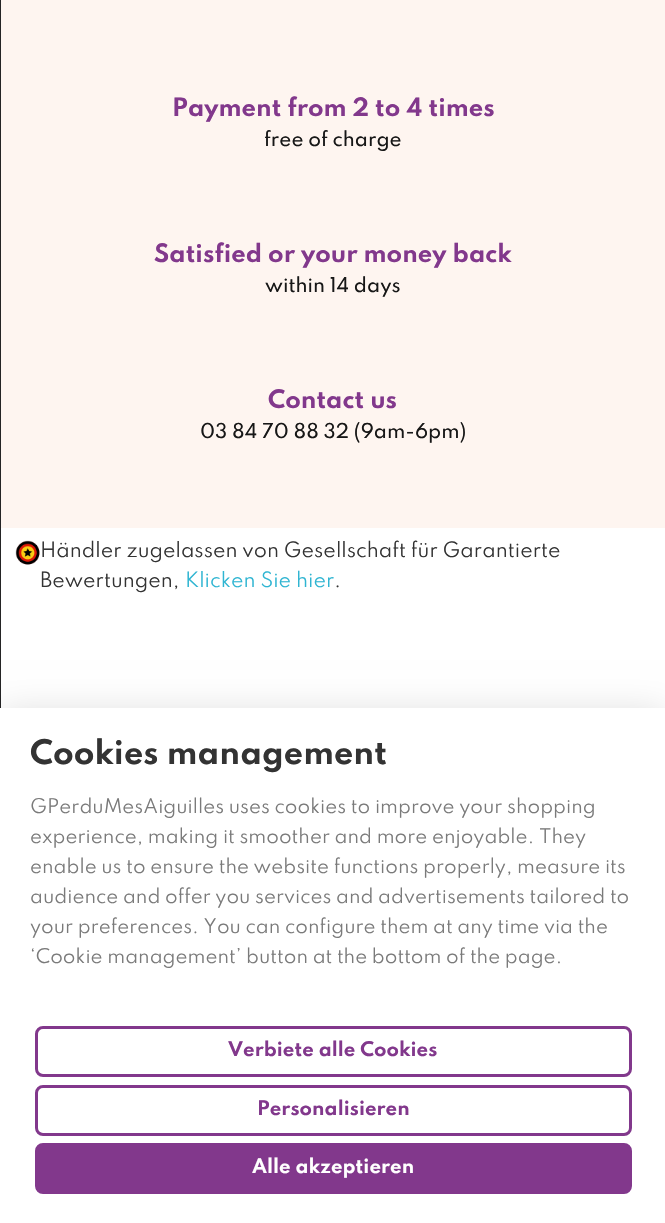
static SkFont makeFont(const char* family, int weight, float size, bool italic = false) {
  SkFontStyle style(weight, SkFontStyle::kNormal_Width,
    italic ? SkFontStyle::kItalic_Slant : SkFontStyle::kUpright_Slant);
  SkFont result(fontMgr->matchFamilyStyle(family, style), size);
  result.setSubpixel(true);
  return result;
}

static void text(SkCanvas* c, const char* s, float x, float y, const SkFont& font, SkColor color) {
  SkPaint ink(SkColor4f::FromColor(color));
  ink.setAntiAlias(true);
  c->drawString(s, x, y, font, ink);
}

static void box(SkCanvas* c, float l, float t, float r, float b, SkColor color) {
  SkPaint ink(SkColor4f::FromColor(color));
  ink.setAntiAlias(true);
  c->drawRect(SkRect::MakeLTRB(l, t, r, b), ink);
}

static void picture(SkCanvas* c, const char* path, float l, float t, float r, float b) {
  auto image = SkImages::DeferredFromEncodedData(SkData::MakeFromFileName(path));
  c->drawImageRect(image, SkRect::MakeLTRB(l, t, r, b), SkSamplingOptions());
}

void draw(SkCanvas* c) {
  SkPaint paint;
  paint.setAntiAlias(true);
  c->clear(0xffffffff);
  box(c, 0, 0, 1, 708, 0xff242425);
  box(c, 1, 0, 665, 528, 0xfffef5f0);
  SkFont face1 = makeFont("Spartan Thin", 700, 22.5f);
  text(c, "Payment from 2 to 4 times", 172, 116, face1, 0xff82388c);
  SkFont face2 = makeFont("Spartan Thin", 500, 18.25f);
  text(c, "free of charge", 264, 146, face2, 0xff171717);
  text(c, "Satisfied or your money back", 154, 262, face1, 0xff82388c);
  text(c, "within 14 days", 265, 292, face2, 0xff171717);
  text(c, "Contact us", 268, 408, face1, 0xff82388c);
  text(c, "03 84 70 88 32 (9am-6pm)", 200, 438, face2, 0xff171717);
  picture(c, "img_01.png", 15, 540, 40, 565);
  SkFont face3 = makeFont("Spartan Thin", 400, 18.75f);
  text(c, "Händler zugelassen von Gesellschaft für Garantierte", 40, 557, face3, 0xff333333);
  text(c, "Bewertungen,", 40, 587, face3, 0xff333333);
  text(c, "Klicken Sie hier", 185, 587, face3, 0xff2fb5d2);
  text(c, ".", 334, 587, face3, 0xff333333);
  paint.setColor(0x26000000);
  paint.setMaskFilter(SkMaskFilter::MakeBlur(kNormal_SkBlurStyle, 18));
  c->drawRect(SkRect::MakeLTRB(0, 714, 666, 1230), paint);
  paint.setMaskFilter(nullptr);
  box(c, 0, 708, 665, 1223, 0xffffffff);
  SkFont face4 = makeFont("Spartan Thin", 700, 30);
  text(c, "Cookies management", 30, 764, face4, 0xff333333);
  SkFont face5 = makeFont("Spartan Thin", 400, 18);
  text(c, "GPerduMesAiguilles uses cookies to improve your shopping", 30, 813, face5, 0xff7a7a7a);
  text(c, "experience, making it smoother and more enjoyable. They", 30, 843, face5, 0xff7a7a7a);
  text(c, "enable us to ensure the website functions properly, measure its", 30, 873, face5, 0xff7a7a7a);
  text(c, "audience and offer you services and advertisements tailored to", 30, 903, face5, 0xff7a7a7a);
  text(c, "your preferences. You can configure them at any time via the", 30, 933, face5, 0xff7a7a7a);
  text(c, "‘Cookie management’ button at the bottom of the page.", 30, 963, face5, 0xff7a7a7a);
  paint.setStyle(SkPaint::kStroke_Style);
  paint.setStrokeWidth(3);
  paint.setColor(0xff82388c);
  c->drawRoundRect(SkRect::MakeLTRB(36.5f, 1027.5f, 630.5f, 1075.5f), 6.5f, 6.5f, paint);
  SkFont face6 = makeFont("Spartan Thin", 700, 18);
  text(c, "Verbiete alle Cookies", 228, 1056, face6, 0xff82388c);
  c->drawRoundRect(SkRect::MakeLTRB(36.5f, 1086.5f, 630.5f, 1134.5f), 6.5f, 6.5f, paint);
  text(c, "Personalisieren", 257, 1115, face6, 0xff82388c);
  paint.setStyle(SkPaint::kFill_Style);
  c->drawRoundRect(SkRect::MakeLTRB(36.5f, 1144.5f, 630.5f, 1192.5f), 6.5f, 6.5f, paint);
  paint.setStyle(SkPaint::kStroke_Style);
  c->drawRoundRect(SkRect::MakeLTRB(36.5f, 1144.5f, 630.5f, 1192.5f), 6.5f, 6.5f, paint);
  text(c, "Alle akzeptieren", 252, 1173, face6, 0xffffffff);
}
